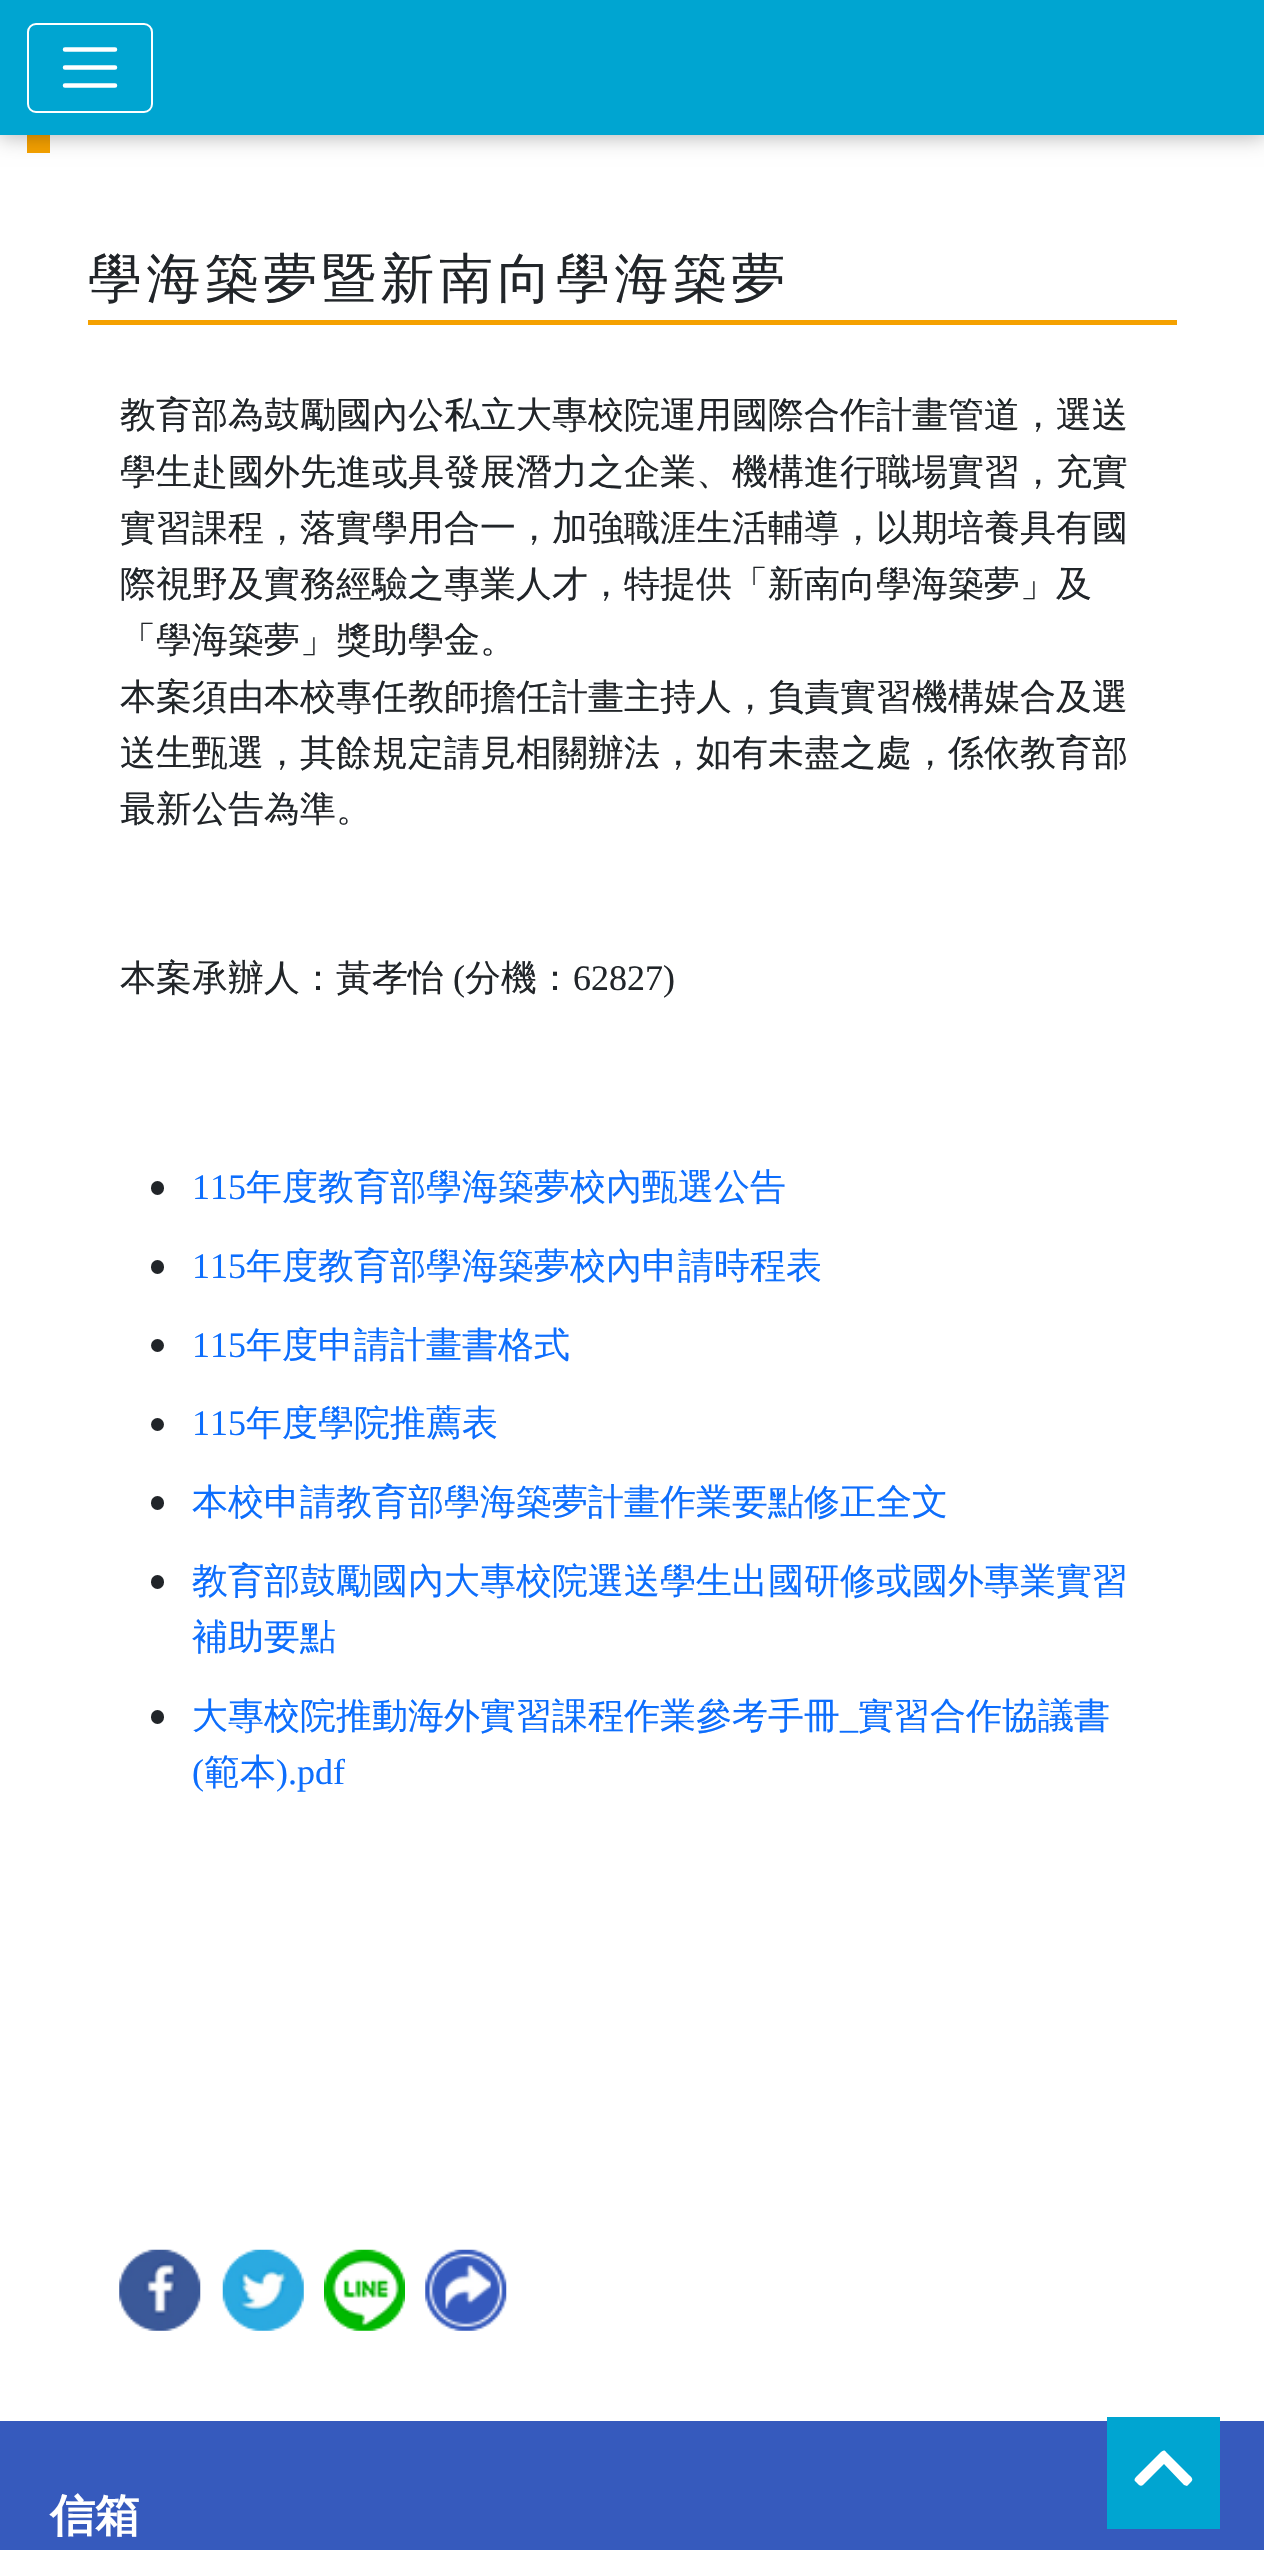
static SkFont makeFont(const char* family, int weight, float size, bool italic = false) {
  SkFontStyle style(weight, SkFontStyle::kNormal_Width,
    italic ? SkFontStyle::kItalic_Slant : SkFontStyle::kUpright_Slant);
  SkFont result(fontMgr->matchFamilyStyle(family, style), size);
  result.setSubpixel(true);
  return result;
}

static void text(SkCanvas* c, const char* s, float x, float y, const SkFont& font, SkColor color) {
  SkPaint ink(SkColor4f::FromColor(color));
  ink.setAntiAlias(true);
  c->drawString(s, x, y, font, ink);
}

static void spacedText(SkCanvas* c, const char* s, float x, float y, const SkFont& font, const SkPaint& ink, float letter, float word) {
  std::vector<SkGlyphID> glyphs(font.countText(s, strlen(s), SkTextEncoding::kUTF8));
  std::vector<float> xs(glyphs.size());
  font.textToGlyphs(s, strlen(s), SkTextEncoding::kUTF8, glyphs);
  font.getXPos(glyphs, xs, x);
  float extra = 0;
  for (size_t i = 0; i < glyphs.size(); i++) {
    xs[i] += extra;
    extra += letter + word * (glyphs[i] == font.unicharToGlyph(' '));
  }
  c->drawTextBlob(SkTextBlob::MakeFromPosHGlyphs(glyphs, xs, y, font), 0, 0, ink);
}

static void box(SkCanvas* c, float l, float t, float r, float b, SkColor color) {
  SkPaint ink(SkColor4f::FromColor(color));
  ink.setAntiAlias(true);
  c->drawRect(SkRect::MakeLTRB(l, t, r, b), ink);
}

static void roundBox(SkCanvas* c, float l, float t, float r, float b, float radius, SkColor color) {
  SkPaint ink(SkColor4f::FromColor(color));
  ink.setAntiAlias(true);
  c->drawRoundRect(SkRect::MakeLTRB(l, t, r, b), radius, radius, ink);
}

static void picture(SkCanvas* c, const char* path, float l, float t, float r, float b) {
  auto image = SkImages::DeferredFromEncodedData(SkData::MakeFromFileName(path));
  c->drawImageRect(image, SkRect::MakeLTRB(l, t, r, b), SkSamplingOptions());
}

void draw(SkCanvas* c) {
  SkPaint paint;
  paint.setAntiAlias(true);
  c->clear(0xffffffff);
  box(c, 27, 135, 50, 153, 0xfff5a100);
  paint.setColor(0x4a000000);
  paint.setMaskFilter(SkMaskFilter::MakeBlur(kNormal_SkBlurStyle, 10));
  c->drawRect(SkRect::MakeLTRB(0, 2, 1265, 137), paint);
  paint.setMaskFilter(nullptr);
  box(c, 0, 0, 1264, 135, 0xff00a5d1);
  paint.setStyle(SkPaint::kStroke_Style);
  paint.setStrokeWidth(2);
  paint.setColor(0xffffffff);
  c->drawRoundRect(SkRect::MakeLTRB(28, 24, 152, 112), 8, 8, paint);
  paint.setStrokeWidth(4.5f);
  paint.setStrokeCap(SkPaint::kRound_Cap);
  c->drawPath(SkPathBuilder().moveTo(65, 49.5f).lineTo(115, 49.5f).moveTo(65, 67.5f).lineTo(115, 67.5f).moveTo(65, 85.5f).lineTo(115, 85.5f).detach(), paint);
  SkFont face1 = makeFont("WenQuanYi Zen Hei", 500, 54);
  paint.setStyle(SkPaint::kFill_Style);
  paint.setColor(0xff212529);
  spacedText(c, "學海築夢暨新南向學海築夢", 88, 297, face1, paint, 4.5f, 0);
  box(c, 88, 320, 1177, 325, 0xfff5a100);
  SkFont face2 = makeFont("WenQuanYi Zen Hei", 500, 36);
  text(c, "教育部為鼓勵國內公私立大專校院運用國際合作計畫管道，選送", 120, 427, face2, 0xff212529);
  text(c, "學生赴國外先進或具發展潛力之企業、機構進行職場實習，充實", 120, 484, face2, 0xff212529);
  text(c, "實習課程，落實學用合一，加強職涯生活輔導，以期培養具有國", 120, 540, face2, 0xff212529);
  text(c, "際視野及實務經驗之專業人才，特提供「新南向學海築夢」及", 120, 596, face2, 0xff212529);
  text(c, "「學海築夢」獎助學金。", 120, 652, face2, 0xff212529);
  text(c, "本案須由本校專任教師擔任計畫主持人，負責實習機構媒合及選", 120, 709, face2, 0xff212529);
  text(c, "送生甄選，其餘規定請見相關辦法，如有未盡之處，係依教育部", 120, 765, face2, 0xff212529);
  text(c, "最新公告為準。", 120, 821, face2, 0xff212529);
  text(c, "本案承辦人：黃孝怡", 120, 990, face2, 0xff212529);
  SkFont face3 = makeFont("Liberation Serif", 400, 36);
  text(c, "(", 453, 990, face3, 0xff212529);
  text(c, "分機：", 465, 990, face2, 0xff212529);
  text(c, "62827)", 573, 990, face3, 0xff212529);
  roundBox(c, 151, 1181, 164, 1195, 6.5f, 0xff212529);
  text(c, "115", 192, 1199, face3, 0xff0d6efd);
  text(c, "年度教育部學海築夢校內甄選公告", 246, 1199, face2, 0xff0d6efd);
  roundBox(c, 151, 1260, 164, 1274, 6.5f, 0xff212529);
  text(c, "115", 192, 1278, face3, 0xff0d6efd);
  text(c, "年度教育部學海築夢校內申請時程表", 246, 1278, face2, 0xff0d6efd);
  c->drawCircle(157.5f, 1345.5f, 6.5f, paint);
  text(c, "115", 192, 1357, face3, 0xff0d6efd);
  text(c, "年度申請計畫書格式", 246, 1357, face2, 0xff0d6efd);
  c->drawCircle(157.5f, 1424.5f, 6.5f, paint);
  text(c, "115", 192, 1435, face3, 0xff0d6efd);
  text(c, "年度學院推薦表", 246, 1435, face2, 0xff0d6efd);
  roundBox(c, 151, 1496, 164, 1510, 6.5f, 0xff212529);
  text(c, "本校申請教育部學海築夢計畫作業要點修正全文", 192, 1514, face2, 0xff0d6efd);
  roundBox(c, 151, 1575, 164, 1589, 6.5f, 0xff212529);
  text(c, "教育部鼓勵國內大專校院選送學生出國研修或國外專業實習", 192, 1593, face2, 0xff0d6efd);
  text(c, "補助要點", 192, 1649, face2, 0xff0d6efd);
  roundBox(c, 151, 1710, 164, 1724, 6.5f, 0xff212529);
  text(c, "大專校院推動海外實習課程作業參考手冊", 192, 1728, face2, 0xff0d6efd);
  text(c, "實習合作協議書", 858, 1728, face2, 0xff0d6efd);
  text(c, "_", 840, 1728, face3, 0xff0d6efd);
  text(c, "(", 192, 1784, face3, 0xff0d6efd);
  text(c, "範本", 204, 1784, face2, 0xff0d6efd);
  text(c, ").pdf", 276, 1784, face3, 0xff0d6efd);
  picture(c, "img_01.png", 119, 2249, 201, 2331);
  picture(c, "img_02.png", 222, 2249, 304, 2331);
  picture(c, "img_03.png", 324, 2249, 405, 2331);
  picture(c, "img_04.png", 425, 2249, 507, 2331);
  box(c, 0, 2421, 1264, 2550, 0xff365abd);
  SkFont face4 = makeFont("WenQuanYi Zen Hei", 700, 45);
  text(c, "信箱", 50, 2531, face4, 0xffffffff);
  box(c, 1107, 2417, 1220, 2529, 0xff00a5d1);
  paint.setColor(0xffffffff);
  c->drawPath(SkPathBuilder().moveTo(1166, 2452).lineTo(1187, 2473).cubicTo(1191, 2477, 1195, 2479, 1190, 2483).lineTo(1187, 2486).lineTo(1184, 2485).lineTo(1164, 2464).lineTo(1143, 2485).cubicTo(1142, 2486, 1140, 2486, 1139, 2485).lineTo(1136, 2482).cubicTo(1134, 2481, 1134, 2479, 1136, 2477).lineTo(1161, 2452).cubicTo(1163, 2450, 1165, 2450, 1166, 2452).close().detach(), paint);
}
